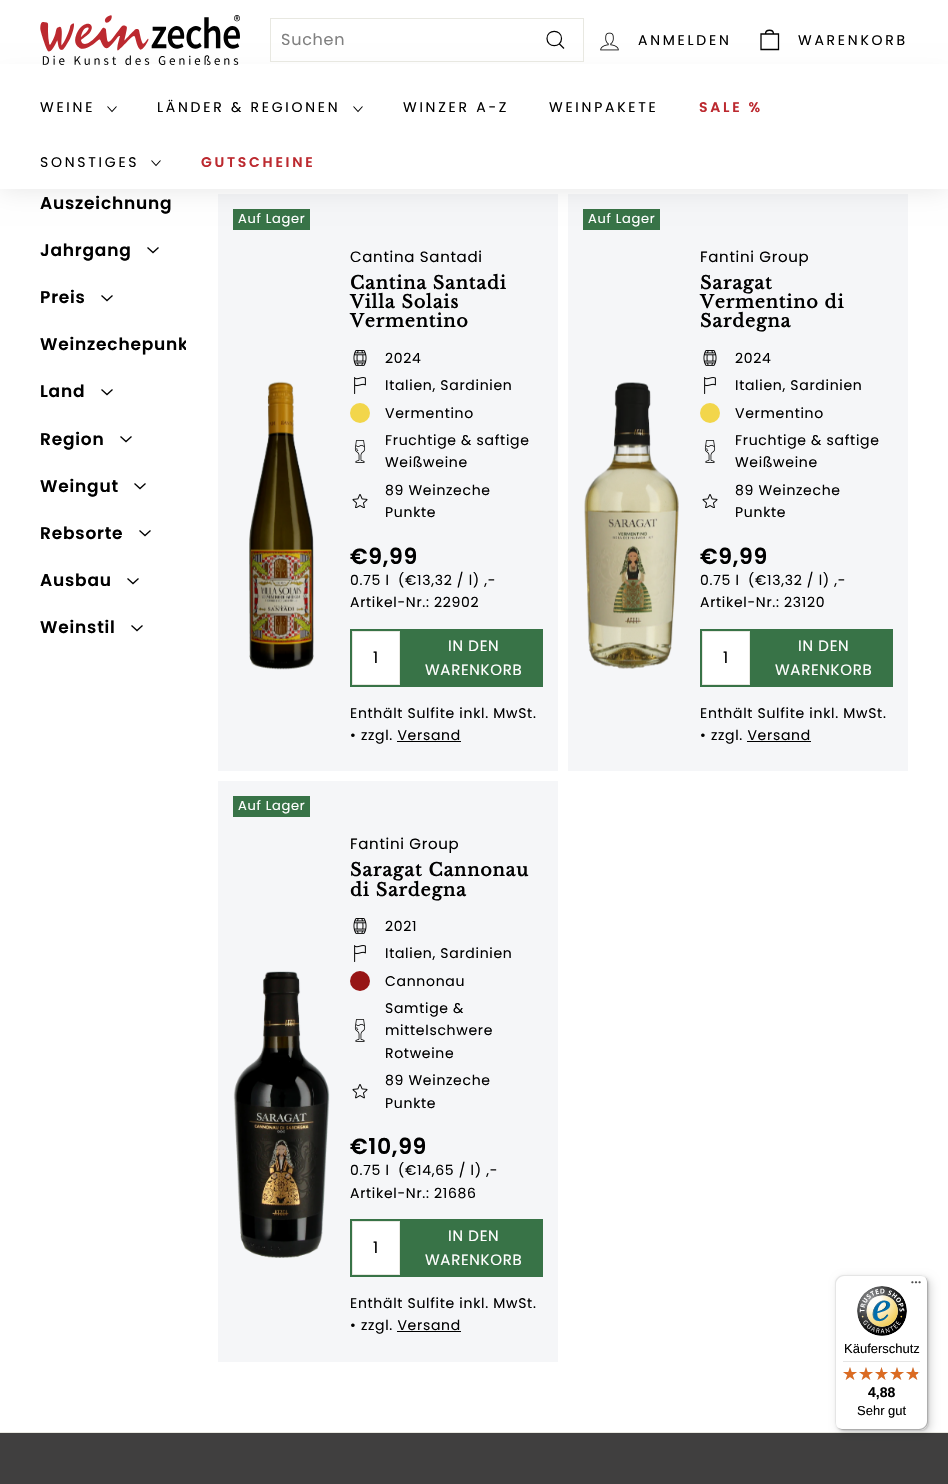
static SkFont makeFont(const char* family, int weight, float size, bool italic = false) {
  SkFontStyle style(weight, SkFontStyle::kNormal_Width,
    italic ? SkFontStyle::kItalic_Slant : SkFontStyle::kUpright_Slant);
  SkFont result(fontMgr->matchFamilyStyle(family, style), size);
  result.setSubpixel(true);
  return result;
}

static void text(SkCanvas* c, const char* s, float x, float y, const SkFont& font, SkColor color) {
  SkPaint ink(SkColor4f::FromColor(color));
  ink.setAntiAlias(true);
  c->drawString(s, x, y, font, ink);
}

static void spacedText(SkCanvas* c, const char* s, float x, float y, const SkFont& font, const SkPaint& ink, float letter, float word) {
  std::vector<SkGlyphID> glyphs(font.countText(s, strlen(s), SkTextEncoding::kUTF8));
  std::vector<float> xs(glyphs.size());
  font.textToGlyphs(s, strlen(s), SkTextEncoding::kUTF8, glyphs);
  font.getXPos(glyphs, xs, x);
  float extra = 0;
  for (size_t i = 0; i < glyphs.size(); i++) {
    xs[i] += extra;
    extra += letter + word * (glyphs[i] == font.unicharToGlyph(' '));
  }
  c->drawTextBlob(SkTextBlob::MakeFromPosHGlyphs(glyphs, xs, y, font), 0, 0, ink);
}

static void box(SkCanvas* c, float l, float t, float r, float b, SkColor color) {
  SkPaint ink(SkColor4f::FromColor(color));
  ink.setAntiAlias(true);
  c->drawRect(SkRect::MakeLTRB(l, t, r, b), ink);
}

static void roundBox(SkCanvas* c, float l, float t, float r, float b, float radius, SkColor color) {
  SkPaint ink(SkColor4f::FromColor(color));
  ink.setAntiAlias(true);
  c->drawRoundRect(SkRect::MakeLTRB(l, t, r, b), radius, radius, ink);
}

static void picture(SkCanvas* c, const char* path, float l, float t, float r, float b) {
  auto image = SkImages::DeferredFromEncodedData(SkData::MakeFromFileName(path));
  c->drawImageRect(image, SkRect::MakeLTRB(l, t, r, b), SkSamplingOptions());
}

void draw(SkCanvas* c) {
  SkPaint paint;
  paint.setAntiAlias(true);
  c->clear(0xffffffff);
  box(c, 218, 194, 558, 771, 0xfff5f6f8);
  box(c, 233, 209, 310, 230, 0xff387347);
  box(c, 568, 194, 908, 771, 0xfff5f6f8);
  box(c, 583, 209, 660, 230, 0xff387347);
  paint.setColor(0x1a000000);
  paint.setMaskFilter(SkMaskFilter::MakeBlur(kNormal_SkBlurStyle, 12.5f));
  c->drawRect(SkRect::MakeLTRB(0, 80, 948, 189), paint);
  paint.setMaskFilter(nullptr);
  box(c, 0, 64, 948, 189, 0xffffffff);
  picture(c, "img_01.png", 40, 15, 240, 65);
  paint.setStyle(SkPaint::kStroke_Style);
  paint.setStrokeWidth(1);
  paint.setColor(0xffe8e8e1);
  c->drawRect(SkRect::MakeLTRB(270.5f, 18.5f, 583.5f, 61.5f), paint);
  SkFont face1 = makeFont("Poppins", 400, 16);
  paint.setStyle(SkPaint::kFill_Style);
  paint.setColor(0xff808080);
  spacedText(c, "Suchen", 281, 45, face1, paint, 0.75f, 0);
  paint.setStyle(SkPaint::kStroke_Style);
  paint.setStrokeWidth(1.2f);
  paint.setColor(0xff000000);
  c->drawPath(SkPathBuilder().moveTo(561.5f, 38.5f).cubicTo(561.5f, 48, 547, 48, 547, 38.5f).cubicTo(547, 29, 561.5f, 29, 561.5f, 38.5f).close().moveTo(564, 48.5f).lineTo(559.5f, 44).detach(), paint);
  picture(c, "img_02.png", 600, 32, 619, 51);
  SkFont face2 = makeFont("Poppins", 400, 14);
  paint.setStyle(SkPaint::kFill_Style);
  spacedText(c, "ANMELDEN", 638, 45, face2, paint, 2.75f, 0);
  paint.setStyle(SkPaint::kStroke_Style);
  paint.setStrokeWidth(1.3f);
  c->drawPath(SkPathBuilder().moveTo(765.5f, 34).cubicTo(765.5f, 29, 773.5f, 29, 773.5f, 34).moveTo(761, 34).lineTo(778.5f, 34).lineTo(778.5f, 49.5f).lineTo(761, 49.5f).close().detach(), paint);
  paint.setStyle(SkPaint::kFill_Style);
  spacedText(c, "WARENKORB", 798, 45, face2, paint, 2.75f, 0);
  spacedText(c, "WEINE", 40, 112, face2, paint, 2.75f, 0);
  paint.setStyle(SkPaint::kStroke_Style);
  paint.setStrokeWidth(1.1f);
  c->drawPath(SkPathBuilder().moveTo(107.5f, 106.5f).lineTo(112, 111.5f).lineTo(116.5f, 106.5f).detach(), paint);
  paint.setStyle(SkPaint::kFill_Style);
  spacedText(c, "LÄNDER & REGIONEN", 157, 112, face2, paint, 2.75f, 0);
  paint.setStyle(SkPaint::kStroke_Style);
  c->drawPath(SkPathBuilder().moveTo(353.5f, 106.5f).lineTo(358, 111.5f).lineTo(362.5f, 106.5f).detach(), paint);
  paint.setStyle(SkPaint::kFill_Style);
  spacedText(c, "WINZER A-Z", 403, 112, face2, paint, 2.75f, 0);
  spacedText(c, "WEINPAKETE", 549, 112, face2, paint, 2.75f, 0);
  SkFont face3 = makeFont("Poppins", 600, 14);
  paint.setColor(0xffbc292f);
  spacedText(c, "SALE %", 699, 112, face3, paint, 2.75f, 0);
  paint.setColor(0xff000000);
  spacedText(c, "SONSTIGES", 40, 167, face2, paint, 2.75f, 0);
  paint.setStyle(SkPaint::kStroke_Style);
  c->drawPath(SkPathBuilder().moveTo(151.5f, 160.5f).lineTo(156, 165.5f).lineTo(160.5f, 160.5f).detach(), paint);
  paint.setStyle(SkPaint::kFill_Style);
  paint.setColor(0xffbc292f);
  spacedText(c, "GUTSCHEINE", 201, 167, face3, paint, 2.75f, 0);
  SkFont face4 = makeFont("Poppins", 600, 17);
  paint.setColor(0xff000000);
  spacedText(c, "Auszeichnung", 40, 209, face4, paint, 0.8f, 0);
  spacedText(c, "Jahrgang", 40, 256, face4, paint, 0.8f, 0);
  paint.setStyle(SkPaint::kStroke_Style);
  paint.setStrokeWidth(1.3f);
  c->drawPath(SkPathBuilder().moveTo(147.5f, 247.5f).lineTo(153, 252.5f).lineTo(158.5f, 247.5f).detach(), paint);
  paint.setStyle(SkPaint::kFill_Style);
  spacedText(c, "Preis", 40, 303, face4, paint, 0.8f, 0);
  paint.setStyle(SkPaint::kStroke_Style);
  c->drawPath(SkPathBuilder().moveTo(101.5f, 295.5f).lineTo(107, 300.5f).lineTo(112.5f, 295.5f).detach(), paint);
  c->save();
  c->clipRect(SkRect::MakeLTRB(40, 326, 186, 373));
  paint.setStyle(SkPaint::kFill_Style);
  spacedText(c, "Weinzechepunk", 40, 350, face4, paint, 0.8f, 0);
  c->restore();
  spacedText(c, "Land", 40, 397, face4, paint, 0.8f, 0);
  paint.setStyle(SkPaint::kStroke_Style);
  c->drawPath(SkPathBuilder().moveTo(101.5f, 389.5f).lineTo(107, 394.5f).lineTo(112.5f, 389.5f).detach(), paint);
  paint.setStyle(SkPaint::kFill_Style);
  spacedText(c, "Region", 40, 445, face4, paint, 0.8f, 0);
  paint.setStyle(SkPaint::kStroke_Style);
  c->drawPath(SkPathBuilder().moveTo(120.5f, 436.5f).lineTo(126, 441.5f).lineTo(131.5f, 436.5f).detach(), paint);
  paint.setStyle(SkPaint::kFill_Style);
  spacedText(c, "Weingut", 40, 492, face4, paint, 0.8f, 0);
  paint.setStyle(SkPaint::kStroke_Style);
  c->drawPath(SkPathBuilder().moveTo(134.5f, 483.5f).lineTo(140, 488.5f).lineTo(145.5f, 483.5f).detach(), paint);
  paint.setStyle(SkPaint::kFill_Style);
  spacedText(c, "Rebsorte", 40, 539, face4, paint, 0.8f, 0);
  paint.setStyle(SkPaint::kStroke_Style);
  c->drawPath(SkPathBuilder().moveTo(139.5f, 530.5f).lineTo(145, 535.5f).lineTo(150.5f, 530.5f).detach(), paint);
  paint.setStyle(SkPaint::kFill_Style);
  spacedText(c, "Ausbau", 40, 586, face4, paint, 0.8f, 0);
  paint.setStyle(SkPaint::kStroke_Style);
  c->drawPath(SkPathBuilder().moveTo(127.5f, 578.5f).lineTo(133, 583.5f).lineTo(138.5f, 578.5f).detach(), paint);
  paint.setStyle(SkPaint::kFill_Style);
  spacedText(c, "Weinstil", 40, 633, face4, paint, 0.8f, 0);
  paint.setStyle(SkPaint::kStroke_Style);
  c->drawPath(SkPathBuilder().moveTo(131.5f, 625.5f).lineTo(137, 630.5f).lineTo(142.5f, 625.5f).detach(), paint);
  SkFont face5 = makeFont("Poppins", 400, 13);
  paint.setStyle(SkPaint::kFill_Style);
  paint.setColor(0xffffffff);
  spacedText(c, "Auf Lager", 238, 223, face5, paint, 0.7f, 0);
  picture(c, "img_03.png", 249, 381, 314, 670);
  SkFont face6 = makeFont("Poppins", 400, 15);
  paint.setColor(0xff000000);
  spacedText(c, "Cantina Santadi", 350, 262, face6, paint, 0.7f, 0);
  SkFont face7 = makeFont("Libre Baskerville", 700, 17.6f);
  spacedText(c, "Cantina Santadi", 350, 289, face7, paint, 0.9f, 0);
  spacedText(c, "Villa Solais", 350, 308, face7, paint, 0.9f, 0);
  spacedText(c, "Vermentino", 350, 327, face7, paint, 0.9f, 0);
  picture(c, "img_04.png", 353, 350, 367, 366);
  spacedText(c, "2024", 385, 363, face2, paint, 0.7f, 0);
  picture(c, "img_05.png", 354, 377, 366, 394);
  spacedText(c, "Italien, Sardinien", 385, 390, face2, paint, 0.7f, 0);
  paint.setColor(0xfff2d64b);
  c->drawCircle(360, 413, 10, paint);
  paint.setColor(0xff000000);
  spacedText(c, "Vermentino", 385, 418, face2, paint, 0.7f, 0);
  picture(c, "img_06.png", 354, 440, 366, 463);
  spacedText(c, "Fruchtige & saftige", 385, 445, face2, paint, 0.7f, 0);
  spacedText(c, "Weißweine", 385, 467, face2, paint, 0.7f, 0);
  picture(c, "img_07.png", 352, 494, 368, 508);
  spacedText(c, "89 Weinzeche", 385, 495, face2, paint, 0.7f, 0);
  spacedText(c, "Punkte", 385, 517, face2, paint, 0.7f, 0);
  SkFont face8 = makeFont("Poppins", 600, 22);
  spacedText(c, "€9,99", 350, 564, face8, paint, 0.7f, 0);
  spacedText(c, "0.75 l", 350, 585, face2, paint, 0.7f, 0);
  spacedText(c, "(€13,32 / l) ,-", 398, 585, face2, paint, 0.7f, 0);
  spacedText(c, "Artikel-Nr.: 22902", 350, 607, face2, paint, 0.7f, 0);
  box(c, 350, 629, 543, 687, 0xff387347);
  paint.setColor(0xffffffff);
  c->drawRect(SkRect::MakeLTRB(352.5f, 631.5f, 399.5f, 684.5f), paint);
  paint.setStyle(SkPaint::kStroke_Style);
  paint.setStrokeWidth(1);
  paint.setColor(0xffe8e8e1);
  c->drawRect(SkRect::MakeLTRB(352.5f, 631.5f, 399.5f, 684.5f), paint);
  paint.setStyle(SkPaint::kFill_Style);
  paint.setColor(0xff000000);
  spacedText(c, "1", 373, 663, face1, paint, 0.75f, 0);
  paint.setColor(0xffffffff);
  spacedText(c, "IN DEN", 448, 651, face6, paint, 0.7f, 0);
  spacedText(c, "WARENKORB", 425, 675, face6, paint, 0.7f, 0);
  paint.setColor(0xff000000);
  spacedText(c, "Enthält Sulfite inkl. MwSt.", 350, 718, face2, paint, 0.7f, 0);
  spacedText(c, "• zzgl. Versand", 350, 740, face2, paint, 0.7f, 0);
  box(c, 397, 741, 461, 742, 0xff000000);
  paint.setColor(0xffffffff);
  spacedText(c, "Auf Lager", 588, 223, face5, paint, 0.7f, 0);
  picture(c, "img_08.png", 584, 382, 679, 669);
  paint.setColor(0xff000000);
  spacedText(c, "Fantini Group", 700, 262, face6, paint, 0.7f, 0);
  spacedText(c, "Saragat", 700, 289, face7, paint, 0.9f, 0);
  spacedText(c, "Vermentino di", 700, 308, face7, paint, 0.9f, 0);
  spacedText(c, "Sardegna", 700, 327, face7, paint, 0.9f, 0);
  picture(c, "img_04.png", 703, 350, 717, 366);
  spacedText(c, "2024", 735, 363, face2, paint, 0.7f, 0);
  picture(c, "img_05.png", 704, 377, 716, 394);
  spacedText(c, "Italien, Sardinien", 735, 390, face2, paint, 0.7f, 0);
  paint.setColor(0xfff2d64b);
  c->drawCircle(710, 413, 10, paint);
  paint.setColor(0xff000000);
  spacedText(c, "Vermentino", 735, 418, face2, paint, 0.7f, 0);
  picture(c, "img_06.png", 704, 440, 716, 463);
  spacedText(c, "Fruchtige & saftige", 735, 445, face2, paint, 0.7f, 0);
  spacedText(c, "Weißweine", 735, 467, face2, paint, 0.7f, 0);
  picture(c, "img_07.png", 702, 494, 718, 508);
  spacedText(c, "89 Weinzeche", 735, 495, face2, paint, 0.7f, 0);
  spacedText(c, "Punkte", 735, 517, face2, paint, 0.7f, 0);
  spacedText(c, "€9,99", 700, 564, face8, paint, 0.7f, 0);
  spacedText(c, "0.75 l", 700, 585, face2, paint, 0.7f, 0);
  spacedText(c, "(€13,32 / l) ,-", 748, 585, face2, paint, 0.7f, 0);
  spacedText(c, "Artikel-Nr.: 23120", 700, 607, face2, paint, 0.7f, 0);
  box(c, 700, 629, 893, 687, 0xff387347);
  paint.setColor(0xffffffff);
  c->drawRect(SkRect::MakeLTRB(702.5f, 631.5f, 749.5f, 684.5f), paint);
  paint.setStyle(SkPaint::kStroke_Style);
  paint.setColor(0xffe8e8e1);
  c->drawRect(SkRect::MakeLTRB(702.5f, 631.5f, 749.5f, 684.5f), paint);
  paint.setStyle(SkPaint::kFill_Style);
  paint.setColor(0xff000000);
  spacedText(c, "1", 723, 663, face1, paint, 0.75f, 0);
  paint.setColor(0xffffffff);
  spacedText(c, "IN DEN", 798, 651, face6, paint, 0.7f, 0);
  spacedText(c, "WARENKORB", 775, 675, face6, paint, 0.7f, 0);
  paint.setColor(0xff000000);
  spacedText(c, "Enthält Sulfite inkl. MwSt.", 700, 718, face2, paint, 0.7f, 0);
  spacedText(c, "• zzgl. Versand", 700, 740, face2, paint, 0.7f, 0);
  box(c, 747, 741, 811, 742, 0xff000000);
  box(c, 218, 781, 558, 1362, 0xfff5f6f8);
  box(c, 233, 796, 310, 817, 0xff387347);
  paint.setColor(0xffffffff);
  spacedText(c, "Auf Lager", 238, 810, face5, paint, 0.7f, 0);
  picture(c, "img_09.png", 233, 971, 330, 1258);
  paint.setColor(0xff000000);
  spacedText(c, "Fantini Group", 350, 849, face6, paint, 0.7f, 0);
  spacedText(c, "Saragat Cannonau", 350, 876, face7, paint, 0.9f, 0);
  spacedText(c, "di Sardegna", 350, 896, face7, paint, 0.9f, 0);
  picture(c, "img_04.png", 353, 918, 367, 934);
  spacedText(c, "2021", 385, 931, face2, paint, 0.7f, 0);
  picture(c, "img_05.png", 354, 945, 366, 962);
  spacedText(c, "Italien, Sardinien", 385, 958, face2, paint, 0.7f, 0);
  paint.setColor(0xff971515);
  c->drawCircle(360, 981, 10, paint);
  paint.setColor(0xff000000);
  spacedText(c, "Cannonau", 385, 986, face2, paint, 0.7f, 0);
  picture(c, "img_06.png", 354, 1019, 366, 1042);
  spacedText(c, "Samtige &", 385, 1013, face2, paint, 0.7f, 0);
  spacedText(c, "mittelschwere", 385, 1035, face2, paint, 0.7f, 0);
  spacedText(c, "Rotweine", 385, 1058, face2, paint, 0.7f, 0);
  picture(c, "img_10.png", 352, 1084, 368, 1099);
  spacedText(c, "89 Weinzeche", 385, 1085, face2, paint, 0.7f, 0);
  spacedText(c, "Punkte", 385, 1108, face2, paint, 0.7f, 0);
  spacedText(c, "€10,99", 350, 1154, face8, paint, 0.7f, 0);
  spacedText(c, "0.75 l", 350, 1175, face2, paint, 0.7f, 0);
  spacedText(c, "(€14,65 / l) ,-", 398, 1175, face2, paint, 0.7f, 0);
  spacedText(c, "Artikel-Nr.: 21686", 350, 1198, face2, paint, 0.7f, 0);
  box(c, 350, 1219, 543, 1277, 0xff387347);
  paint.setColor(0xffffffff);
  c->drawRect(SkRect::MakeLTRB(352.5f, 1221.5f, 399.5f, 1274.5f), paint);
  paint.setStyle(SkPaint::kStroke_Style);
  paint.setColor(0xffe8e8e1);
  c->drawRect(SkRect::MakeLTRB(352.5f, 1221.5f, 399.5f, 1274.5f), paint);
  paint.setStyle(SkPaint::kFill_Style);
  paint.setColor(0xff000000);
  spacedText(c, "1", 373, 1253, face1, paint, 0.75f, 0);
  paint.setColor(0xffffffff);
  spacedText(c, "IN DEN", 448, 1241, face6, paint, 0.7f, 0);
  spacedText(c, "WARENKORB", 425, 1265, face6, paint, 0.7f, 0);
  paint.setColor(0xff000000);
  spacedText(c, "Enthält Sulfite inkl. MwSt.", 350, 1308, face2, paint, 0.7f, 0);
  spacedText(c, "• zzgl. Versand", 350, 1330, face2, paint, 0.7f, 0);
  box(c, 397, 1331, 461, 1332, 0xff000000);
  box(c, 0, 1433, 948, 1484, 0xff403f3f);
  box(c, 0, 1432, 948, 1433, 0xffe8e8e1);
  paint.setColor(0x26000000);
  paint.setMaskFilter(SkMaskFilter::MakeBlur(kNormal_SkBlurStyle, 4));
  c->drawRoundRect(SkRect::MakeLTRB(838, 1278, 931, 1433), 8, 8, paint);
  paint.setMaskFilter(nullptr);
  paint.setMaskFilter(SkMaskFilter::MakeBlur(kNormal_SkBlurStyle, 1));
  c->drawRoundRect(SkRect::MakeLTRB(836, 1276, 929, 1431), 8, 8, paint);
  paint.setMaskFilter(nullptr);
  roundBox(c, 835, 1275, 928, 1430, 8, 0xffffffff);
  paint.setColor(0xffe5e5e5);
  c->drawPath(SkPathBuilder().moveTo(844, 1276).lineTo(921, 1276).cubicTo(923, 1276, 925, 1277, 927, 1279).cubicTo(925, 1277, 923, 1275, 920, 1275).lineTo(843, 1275).cubicTo(839, 1275, 835, 1279, 835, 1283).lineTo(835, 1422).cubicTo(835, 1425, 837, 1427, 839, 1429).cubicTo(837, 1427, 836, 1425, 836, 1423).lineTo(836, 1284).cubicTo(836, 1280, 840, 1276, 844, 1276).close().detach(), paint);
  paint.setColor(0xffcccccc);
  c->drawPath(SkPathBuilder().moveTo(836, 1426).cubicTo(838, 1428, 840, 1430, 843, 1430).lineTo(920, 1430).cubicTo(924, 1430, 928, 1426, 928, 1422).lineTo(928, 1283).cubicTo(928, 1280, 926, 1278, 924, 1276).cubicTo(926, 1278, 927, 1280, 927, 1282).lineTo(927, 1421).cubicTo(927, 1425, 923, 1429, 919, 1429).lineTo(842, 1429).cubicTo(840, 1429, 838, 1428, 836, 1426).close().detach(), paint);
  paint.setColor(0x33323232);
  c->drawPath(SkPathBuilder().moveTo(837, 1427).cubicTo(838, 1429, 841, 1430, 843, 1430).lineTo(920, 1430).cubicTo(924, 1430, 928, 1426, 928, 1422).lineTo(928, 1283).cubicTo(928, 1281, 927, 1278, 925, 1277).cubicTo(926, 1278, 927, 1280, 927, 1282).lineTo(927, 1421).cubicTo(927, 1426, 924, 1429, 919, 1429).lineTo(842, 1429).cubicTo(840, 1429, 838, 1428, 837, 1427).close().detach(), paint);
  picture(c, "img_11.png", 911, 1281, 921, 1284);
  paint.setColor(0x4dffffff);
  c->drawPath(SkPathBuilder().moveTo(920, 1430).cubicTo(924.5f, 1430, 928, 1426.5f, 928, 1422).cubicTo(928, 1426, 924, 1430, 920, 1430).close().detach(), paint);
  picture(c, "img_12.png", 857, 1286, 907, 1336);
  SkFont face9 = makeFont("Liberation Sans", 400, 13);
  text(c, "Käuferschutz", 844, 1353, face9, 0xff000000);
  box(c, 843, 1361, 920, 1362, 0xffe5e5e5);
  picture(c, "img_13.png", 843, 1367, 857, 1380);
  picture(c, "img_13.png", 859, 1367, 873, 1380);
  picture(c, "img_14.png", 875, 1367, 888, 1380);
  picture(c, "img_13.png", 890, 1367, 904, 1380);
  picture(c, "img_13.png", 906, 1367, 920, 1380);
  picture(c, "img_15.png", 843, 1367, 857, 1380);
  picture(c, "img_15.png", 859, 1367, 873, 1380);
  picture(c, "img_16.png", 875, 1367, 888, 1380);
  picture(c, "img_15.png", 890, 1367, 904, 1380);
  picture(c, "img_17.png", 906, 1367, 918, 1380);
  SkFont face10 = makeFont("Liberation Sans", 700, 14);
  text(c, "4,88", 868, 1397, face10, 0xff000000);
  text(c, "Sehr gut", 857, 1415, face9, 0xff000000);
}
